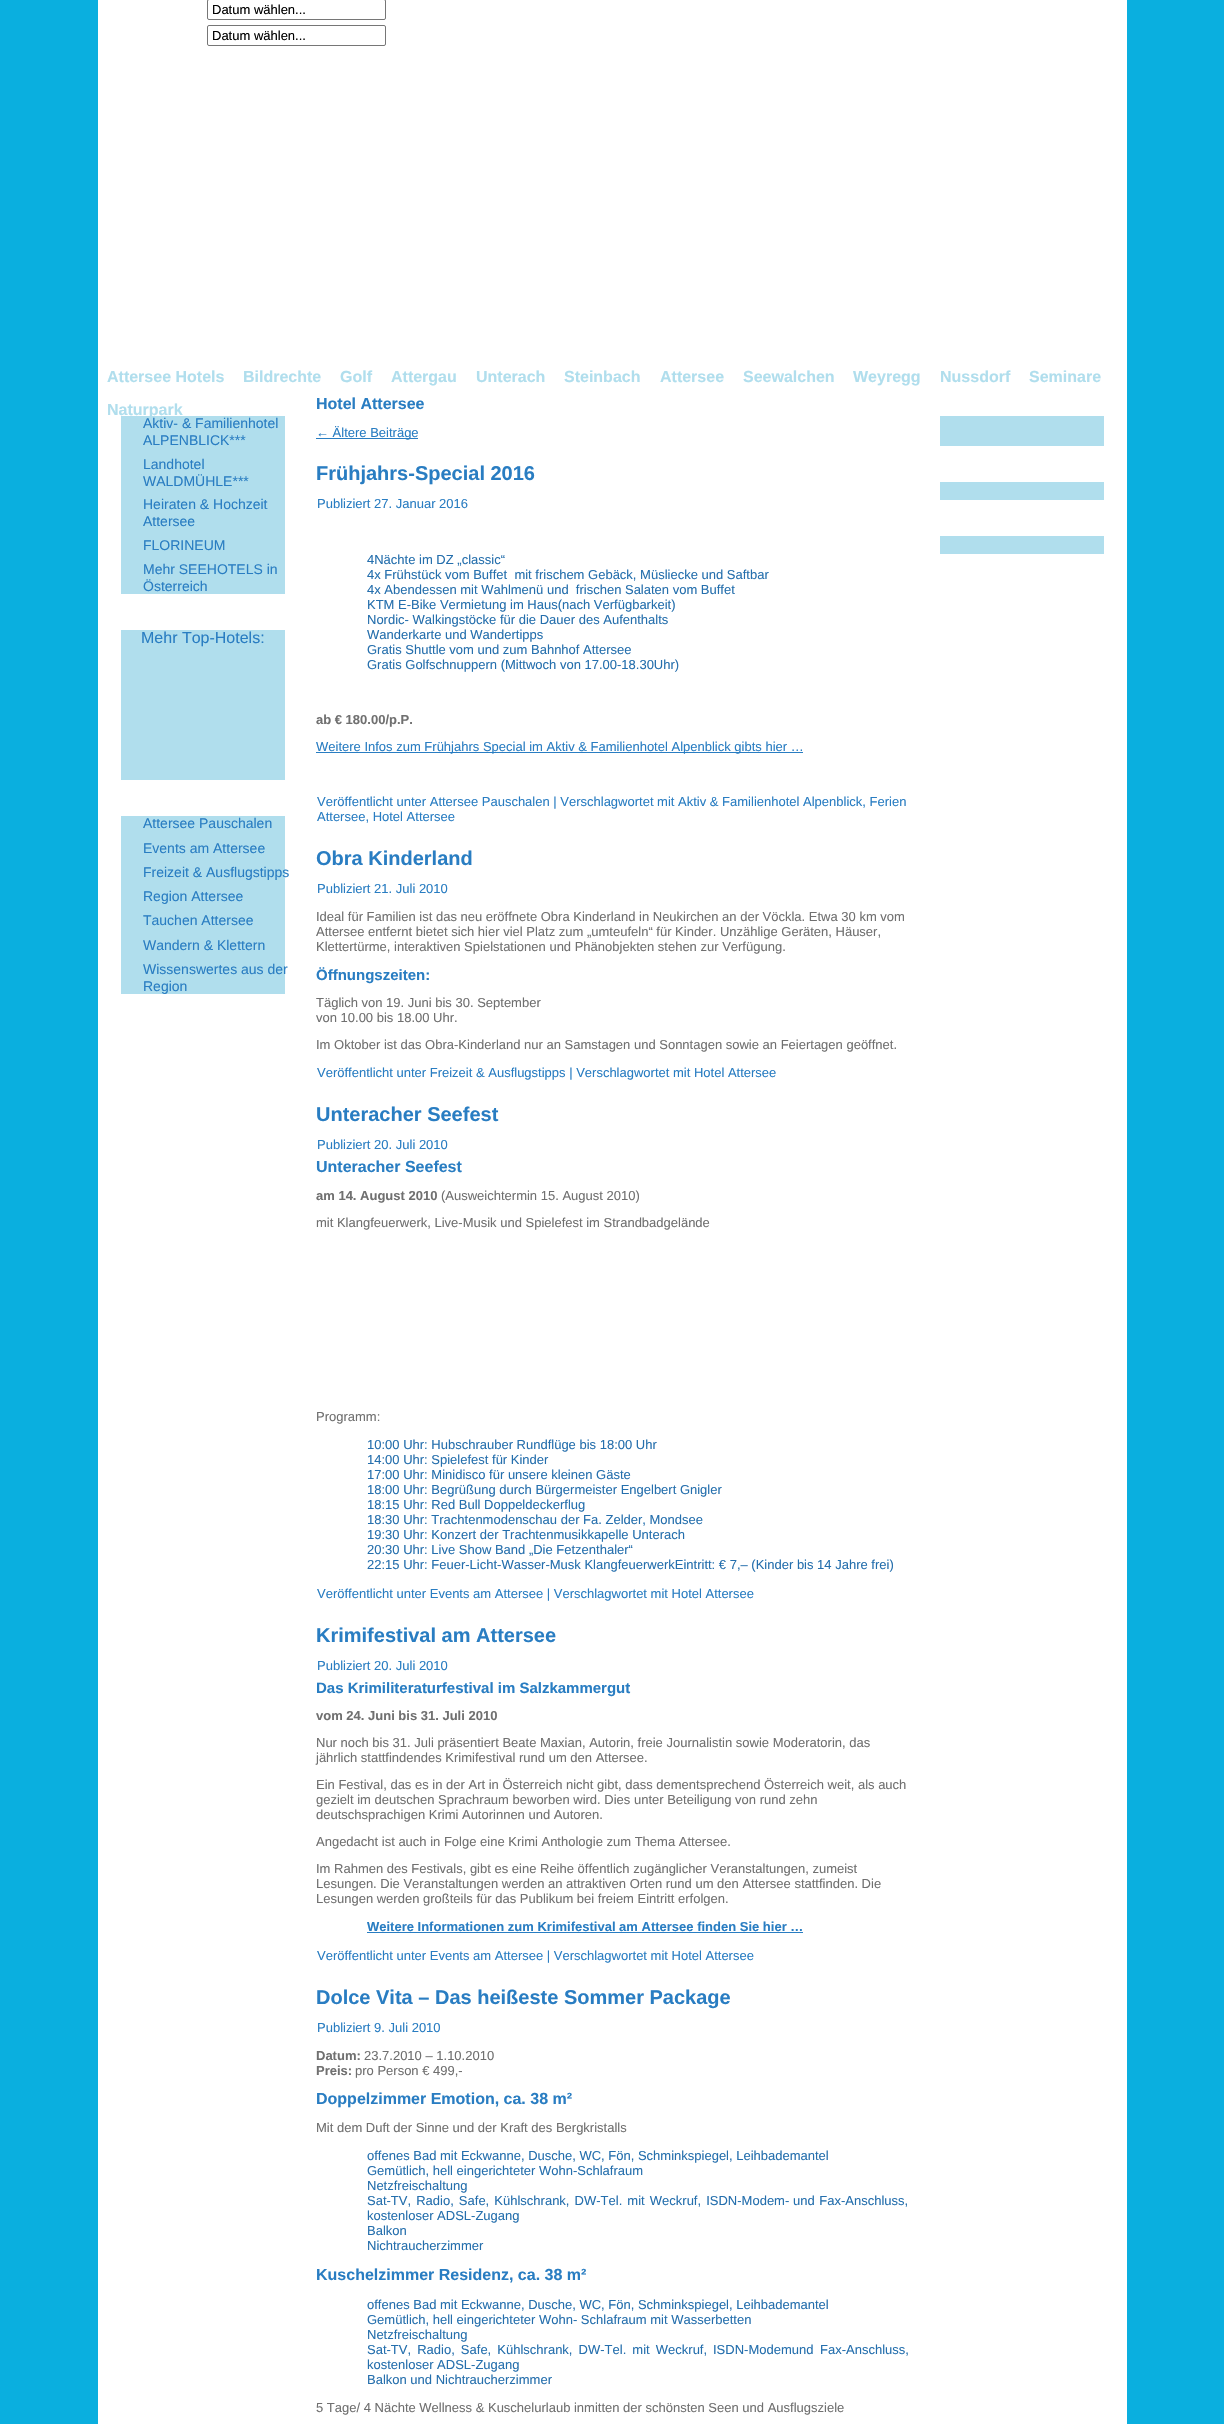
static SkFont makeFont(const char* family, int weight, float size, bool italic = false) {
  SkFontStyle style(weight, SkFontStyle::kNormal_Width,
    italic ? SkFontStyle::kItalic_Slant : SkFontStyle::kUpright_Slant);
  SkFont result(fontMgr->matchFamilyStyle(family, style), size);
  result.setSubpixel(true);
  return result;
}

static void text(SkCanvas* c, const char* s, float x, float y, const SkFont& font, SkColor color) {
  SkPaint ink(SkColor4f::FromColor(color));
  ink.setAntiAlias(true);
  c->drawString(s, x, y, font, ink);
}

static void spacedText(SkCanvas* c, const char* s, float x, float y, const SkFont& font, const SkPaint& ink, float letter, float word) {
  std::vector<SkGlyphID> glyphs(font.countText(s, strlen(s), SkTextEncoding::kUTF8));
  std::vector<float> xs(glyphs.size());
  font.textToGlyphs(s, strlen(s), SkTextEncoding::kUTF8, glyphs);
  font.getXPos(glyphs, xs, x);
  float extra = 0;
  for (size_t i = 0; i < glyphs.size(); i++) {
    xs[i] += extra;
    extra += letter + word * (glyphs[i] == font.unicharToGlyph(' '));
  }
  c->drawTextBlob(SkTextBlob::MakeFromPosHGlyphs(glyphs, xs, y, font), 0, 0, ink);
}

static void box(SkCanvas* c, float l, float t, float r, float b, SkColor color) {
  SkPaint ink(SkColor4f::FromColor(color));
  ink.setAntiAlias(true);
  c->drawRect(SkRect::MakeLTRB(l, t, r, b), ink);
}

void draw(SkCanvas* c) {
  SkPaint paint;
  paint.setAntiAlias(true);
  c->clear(0xff0aafdf);
  box(c, 98, 0, 1127, 360, 0xffffffff);
  paint.setStyle(SkPaint::kStroke_Style);
  paint.setStrokeWidth(1);
  paint.setColor(0xff767676);
  c->drawRoundRect(SkRect::MakeLTRB(207.5f, -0.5f, 385.5f, 19.5f), 1.5f, 1.5f, paint);
  SkFont face1 = makeFont("Liberation Sans", 400, 13);
  text(c, "Datum wählen...", 212, 14, face1, 0xff000000);
  c->drawRoundRect(SkRect::MakeLTRB(207.5f, 25.5f, 385.5f, 45.5f), 1.5f, 1.5f, paint);
  text(c, "Datum wählen...", 212, 40, face1, 0xff000000);
  box(c, 98, 360, 1127, 2424, 0xffffffff);
  SkFont face2 = makeFont("Liberation Sans", 700, 16);
  text(c, "Attersee Hotels", 107, 382, face2, 0xffb0deed);
  text(c, "Bildrechte", 243, 382, face2, 0xffb0deed);
  text(c, "Golf", 340, 382, face2, 0xffb0deed);
  text(c, "Attergau", 391, 382, face2, 0xffb0deed);
  text(c, "Unterach", 476, 382, face2, 0xffb0deed);
  text(c, "Steinbach", 564, 382, face2, 0xffb0deed);
  text(c, "Attersee", 660, 382, face2, 0xffb0deed);
  text(c, "Seewalchen", 743, 382, face2, 0xffb0deed);
  text(c, "Weyregg", 853, 382, face2, 0xffb0deed);
  text(c, "Nussdorf", 940, 382, face2, 0xffb0deed);
  text(c, "Seminare", 1029, 382, face2, 0xffb0deed);
  box(c, 121, 416, 285, 594, 0xffb0deed);
  text(c, "Naturpark", 107, 415, face2, 0xffb0deed);
  SkFont face3 = makeFont("Liberation Sans", 400, 14);
  text(c, "Aktiv- & Familienhotel", 143, 428, face3, 0xff297dc2);
  text(c, "ALPENBLICK***", 143, 445, face3, 0xff297dc2);
  text(c, "Landhotel", 143, 469, face3, 0xff297dc2);
  text(c, "WALDMÜHLE***", 143, 486, face3, 0xff297dc2);
  text(c, "Heiraten & Hochzeit", 143, 509, face3, 0xff297dc2);
  text(c, "Attersee", 143, 526, face3, 0xff297dc2);
  text(c, "FLORINEUM", 143, 550, face3, 0xff297dc2);
  text(c, "Mehr SEEHOTELS in", 143, 574, face3, 0xff297dc2);
  text(c, "Österreich", 143, 591, face3, 0xff297dc2);
  box(c, 121, 630, 285, 780, 0xffb0deed);
  SkFont face4 = makeFont("Liberation Sans", 400, 16);
  text(c, "Mehr Top-Hotels:", 141, 643, face4, 0xff297dc2);
  box(c, 121, 816, 285, 994, 0xffb0deed);
  text(c, "Attersee Pauschalen", 143, 828, face3, 0xff297dc2);
  text(c, "Events am Attersee", 143, 853, face3, 0xff297dc2);
  text(c, "Freizeit & Ausflugstipps", 143, 877, face3, 0xff297dc2);
  text(c, "Region Attersee", 143, 901, face3, 0xff297dc2);
  text(c, "Tauchen Attersee", 143, 925, face3, 0xff297dc2);
  text(c, "Wandern & Klettern", 143, 950, face3, 0xff297dc2);
  text(c, "Wissenswertes aus der", 143, 974, face3, 0xff297dc2);
  text(c, "Region", 143, 991, face3, 0xff297dc2);
  text(c, "Hotel Attersee", 316, 409, face2, 0xff297dc2);
  box(c, 316, 438, 418, 439, 0xff297dc2);
  text(c, "← Ältere Beiträge", 316, 437, face1, 0xff297dc2);
  SkFont face5 = makeFont("Liberation Sans", 700, 20);
  text(c, "Frühjahrs-Special 2016", 316, 480, face5, 0xff297dc2);
  text(c, "Publiziert 27. Januar 2016", 317, 508, face1, 0xff297dc2);
  text(c, "4Nächte im DZ „classic“", 367, 564, face1, 0xff256fad);
  text(c, "4x Frühstück vom Buffet  mit frischem Gebäck, Müsliecke und Saftbar", 367, 579, face1, 0xff256fad);
  text(c, "4x Abendessen mit Wahlmenü und  frischen Salaten vom Buffet", 367, 594, face1, 0xff256fad);
  text(c, "KTM E-Bike Vermietung im Haus(nach Verfügbarkeit)", 367, 609, face1, 0xff256fad);
  text(c, "Nordic- Walkingstöcke für die Dauer des Aufenthalts", 367, 624, face1, 0xff256fad);
  text(c, "Wanderkarte und Wandertipps", 367, 639, face1, 0xff256fad);
  text(c, "Gratis Shuttle vom und zum Bahnhof Attersee", 367, 654, face1, 0xff256fad);
  text(c, "Gratis Golfschnuppern (Mittwoch von 17.00-18.30Uhr)", 367, 669, face1, 0xff256fad);
  SkFont face6 = makeFont("Liberation Sans", 700, 13);
  text(c, "ab € 180.00/p.P.", 316, 724, face6, 0xff707070);
  box(c, 316, 752, 803, 753, 0xff297dc2);
  text(c, "Weitere Infos zum Frühjahrs Special im Aktiv & Familienhotel Alpenblick gibts hier …", 316, 751, face1, 0xff297dc2);
  text(c, "Veröffentlicht unter Attersee Pauschalen | Verschlagwortet mit Aktiv & Familienhotel Alpenblick, Ferien", 317, 806, face1, 0xff297dc2);
  text(c, "Attersee, Hotel Attersee", 317, 821, face1, 0xff297dc2);
  text(c, "Obra Kinderland", 316, 865, face5, 0xff297dc2);
  text(c, "Publiziert 21. Juli 2010", 317, 893, face1, 0xff297dc2);
  text(c, "Ideal für Familien ist das neu eröffnete Obra Kinderland in Neukirchen an der Vöckla. Etwa 30 km vom", 316, 921, face1, 0xff707070);
  text(c, "Attersee entfernt bietet sich hier viel Platz zum „umteufeln“ für Kinder. Unzählige Geräten, Häuser,", 316, 936, face1, 0xff707070);
  text(c, "Klettertürme, interaktiven Spielstationen und Phänobjekten stehen zur Verfügung.", 316, 951, face1, 0xff707070);
  SkFont face7 = makeFont("Liberation Sans", 700, 15);
  text(c, "Öffnungszeiten:", 316, 980, face7, 0xff297dc2);
  text(c, "Täglich von 19. Juni bis 30. September", 316, 1007, face1, 0xff707070);
  text(c, "von 10.00 bis 18.00 Uhr.", 316, 1022, face1, 0xff707070);
  text(c, "Im Oktober ist das Obra-Kinderland nur an Samstagen und Sonntagen sowie an Feiertagen geöffnet.", 316, 1049, face1, 0xff707070);
  text(c, "Veröffentlicht unter Freizeit & Ausflugstipps | Verschlagwortet mit Hotel Attersee", 317, 1077, face1, 0xff297dc2);
  text(c, "Unteracher Seefest", 316, 1121, face5, 0xff297dc2);
  text(c, "Publiziert 20. Juli 2010", 317, 1149, face1, 0xff297dc2);
  text(c, "Unteracher Seefest", 316, 1172, face2, 0xff297dc2);
  text(c, "am 14. August 2010", 316, 1200, face6, 0xff707070);
  text(c, "(Ausweichtermin 15. August 2010)", 441, 1200, face1, 0xff707070);
  text(c, "mit Klangfeuerwerk, Live-Musik und Spielefest im Strandbadgelände", 316, 1227, face1, 0xff707070);
  text(c, "Programm:", 316, 1421, face1, 0xff707070);
  text(c, "10:00 Uhr: Hubschrauber Rundflüge bis 18:00 Uhr", 367, 1449, face1, 0xff256fad);
  text(c, "14:00 Uhr: Spielefest für Kinder", 367, 1464, face1, 0xff256fad);
  text(c, "17:00 Uhr: Minidisco für unsere kleinen Gäste", 367, 1479, face1, 0xff256fad);
  text(c, "18:00 Uhr: Begrüßung durch Bürgermeister Engelbert Gnigler", 367, 1494, face1, 0xff256fad);
  text(c, "18:15 Uhr: Red Bull Doppeldeckerflug", 367, 1509, face1, 0xff256fad);
  text(c, "18:30 Uhr: Trachtenmodenschau der Fa. Zelder, Mondsee", 367, 1524, face1, 0xff256fad);
  text(c, "19:30 Uhr: Konzert der Trachtenmusikkapelle Unterach", 367, 1539, face1, 0xff256fad);
  text(c, "20:30 Uhr: Live Show Band „Die Fetzenthaler“", 367, 1554, face1, 0xff256fad);
  text(c, "22:15 Uhr: Feuer-Licht-Wasser-Musk KlangfeuerwerkEintritt: € 7,– (Kinder bis 14 Jahre frei)", 367, 1569, face1, 0xff256fad);
  text(c, "Veröffentlicht unter Events am Attersee | Verschlagwortet mit Hotel Attersee", 317, 1598, face1, 0xff297dc2);
  text(c, "Krimifestival am Attersee", 316, 1642, face5, 0xff297dc2);
  text(c, "Publiziert 20. Juli 2010", 317, 1670, face1, 0xff297dc2);
  text(c, "Das Krimiliteraturfestival im Salzkammergut", 316, 1693, face7, 0xff297dc2);
  text(c, "vom 24. Juni bis 31. Juli 2010", 316, 1720, face6, 0xff707070);
  text(c, "Nur noch bis 31. Juli präsentiert Beate Maxian, Autorin, freie Journalistin sowie Moderatorin, das", 316, 1747, face1, 0xff707070);
  text(c, "jährlich stattfindendes Krimifestival rund um den Attersee.", 316, 1762, face1, 0xff707070);
  text(c, "Ein Festival, das es in der Art in Österreich nicht gibt, dass dementsprechend Österreich weit, als auch", 316, 1789, face1, 0xff707070);
  text(c, "gezielt im deutschen Sprachraum beworben wird. Dies unter Beteiligung von rund zehn", 316, 1804, face1, 0xff707070);
  text(c, "deutschsprachigen Krimi Autorinnen und Autoren.", 316, 1819, face1, 0xff707070);
  text(c, "Angedacht ist auch in Folge eine Krimi Anthologie zum Thema Attersee.", 316, 1846, face1, 0xff707070);
  text(c, "Im Rahmen des Festivals, gibt es eine Reihe öffentlich zugänglicher Veranstaltungen, zumeist", 316, 1873, face1, 0xff707070);
  text(c, "Lesungen. Die Veranstaltungen werden an attraktiven Orten rund um den Attersee stattfinden. Die", 316, 1888, face1, 0xff707070);
  text(c, "Lesungen werden großteils für das Publikum bei freiem Eintritt erfolgen.", 316, 1903, face1, 0xff707070);
  text(c, "Weitere Informationen zum Krimifestival am Attersee finden Sie hier …", 367, 1931, face6, 0xff297dc2);
  box(c, 367, 1932, 803, 1933, 0xff297dc2);
  text(c, "Veröffentlicht unter Events am Attersee | Verschlagwortet mit Hotel Attersee", 317, 1960, face1, 0xff297dc2);
  text(c, "Dolce Vita – Das heißeste Sommer Package", 316, 2004, face5, 0xff297dc2);
  text(c, "Publiziert 9. Juli 2010", 317, 2032, face1, 0xff297dc2);
  text(c, "Datum:", 316, 2060, face6, 0xff707070);
  text(c, "23.7.2010 – 1.10.2010", 364, 2060, face1, 0xff707070);
  text(c, "Preis:", 316, 2075, face6, 0xff707070);
  text(c, "pro Person € 499,-", 355, 2075, face1, 0xff707070);
  text(c, "Doppelzimmer Emotion, ca. 38 m²", 316, 2104, face2, 0xff297dc2);
  text(c, "Mit dem Duft der Sinne und der Kraft des Bergkristalls", 316, 2132, face1, 0xff707070);
  text(c, "offenes Bad mit Eckwanne, Dusche, WC, Fön, Schminkspiegel, Leihbademantel", 367, 2160, face1, 0xff256fad);
  text(c, "Gemütlich, hell eingerichteter Wohn-Schlafraum", 367, 2175, face1, 0xff256fad);
  text(c, "Netzfreischaltung", 367, 2190, face1, 0xff256fad);
  paint.setStyle(SkPaint::kFill_Style);
  paint.setColor(0xff256fad);
  spacedText(c, "Sat-TV, Radio, Safe, Kühlschrank, DW-Tel. mit Weckruf, ISDN-Modem-", 367, 2205, face1, paint, 0, 1.5f);
  spacedText(c, "und Fax-Anschluss,", 793, 2205, face1, paint, 0, 1);
  text(c, "kostenloser ADSL-Zugang", 367, 2220, face1, 0xff256fad);
  text(c, "Balkon", 367, 2235, face1, 0xff256fad);
  text(c, "Nichtraucherzimmer", 367, 2250, face1, 0xff256fad);
  text(c, "Kuschelzimmer Residenz, ca. 38 m²", 316, 2280, face2, 0xff297dc2);
  text(c, "offenes Bad mit Eckwanne, Dusche, WC, Fön, Schminkspiegel, Leihbademantel", 367, 2309, face1, 0xff256fad);
  text(c, "Gemütlich, hell eingerichteter Wohn- Schlafraum mit Wasserbetten", 367, 2324, face1, 0xff256fad);
  text(c, "Netzfreischaltung", 367, 2339, face1, 0xff256fad);
  spacedText(c, "Sat-TV, Radio, Safe, Kühlschrank, DW-Tel. mit Weckruf,", 367, 2354, face1, paint, 0, 2.5f);
  spacedText(c, "ISDN-Modemund Fax-Anschluss,", 713, 2354, face1, paint, 0, 3);
  text(c, "kostenloser ADSL-Zugang", 367, 2369, face1, 0xff256fad);
  text(c, "Balkon und Nichtraucherzimmer", 367, 2384, face1, 0xff256fad);
  text(c, "5 Tage/ 4 Nächte Wellness & Kuschelurlaub inmitten der schönsten Seen und Ausflugsziele", 316, 2412, face1, 0xff707070);
  box(c, 940, 416, 1104, 446, 0xffb0deed);
  box(c, 940, 482, 1104, 500, 0xffb0deed);
  box(c, 940, 536, 1104, 554, 0xffb0deed);
}
